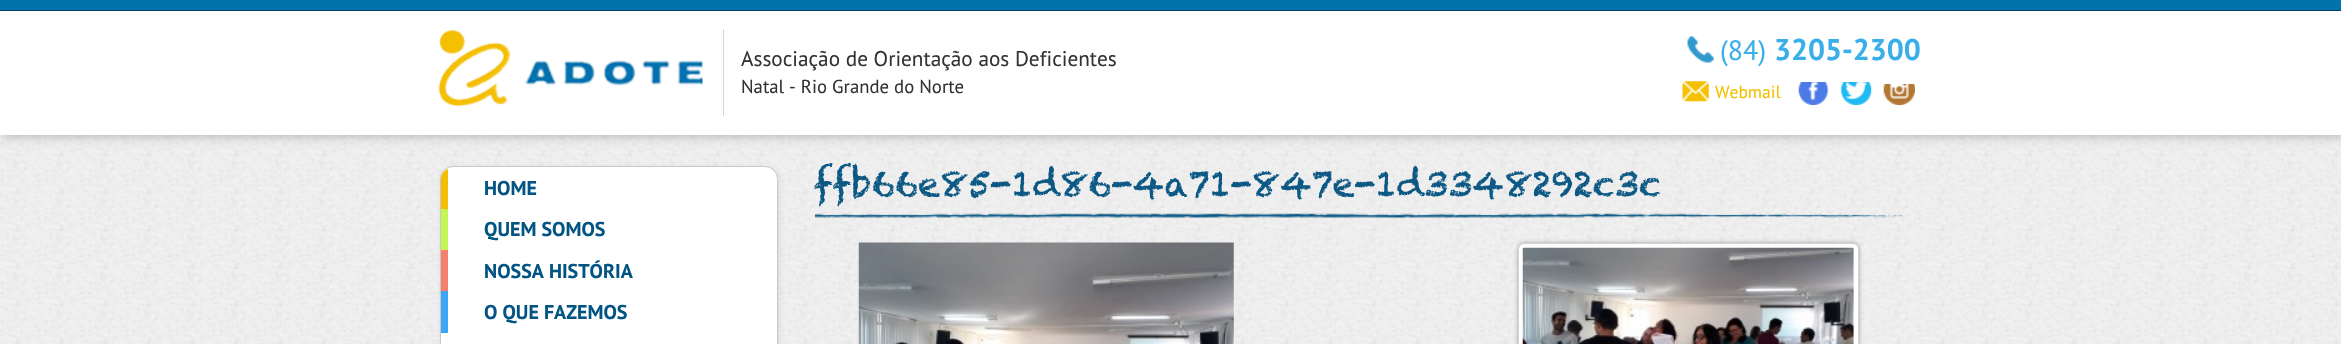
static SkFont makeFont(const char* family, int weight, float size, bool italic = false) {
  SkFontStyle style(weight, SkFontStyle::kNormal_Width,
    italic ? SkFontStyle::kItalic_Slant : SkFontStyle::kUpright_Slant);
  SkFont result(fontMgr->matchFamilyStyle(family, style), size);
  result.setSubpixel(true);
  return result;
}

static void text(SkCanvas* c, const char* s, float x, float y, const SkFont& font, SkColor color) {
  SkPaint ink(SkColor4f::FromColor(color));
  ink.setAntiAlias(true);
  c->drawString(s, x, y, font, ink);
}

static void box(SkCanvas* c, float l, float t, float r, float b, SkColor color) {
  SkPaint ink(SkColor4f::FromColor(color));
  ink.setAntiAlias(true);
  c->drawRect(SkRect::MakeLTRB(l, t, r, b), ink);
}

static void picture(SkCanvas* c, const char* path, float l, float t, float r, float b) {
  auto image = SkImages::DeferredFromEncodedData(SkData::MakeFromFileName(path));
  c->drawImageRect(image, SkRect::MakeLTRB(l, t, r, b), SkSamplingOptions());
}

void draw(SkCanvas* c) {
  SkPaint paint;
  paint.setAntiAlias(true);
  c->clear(0xffffffff);
  picture(c, "img_01.png", 0, 135, 2341, 344);
  paint.setColor(0x4d000000);
  paint.setMaskFilter(SkMaskFilter::MakeBlur(kNormal_SkBlurStyle, 5.5f));
  c->drawRect(SkRect::MakeLTRB(3, 0, 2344, 135), paint);
  paint.setMaskFilter(nullptr);
  box(c, 0, 11, 2341, 135, 0xffffffff);
  box(c, 0, 0, 2341, 10, 0xff0173ac);
  box(c, 0, 10, 2341, 11, 0xff034261);
  picture(c, "img_02.png", 438, 29, 703, 107);
  box(c, 723, 29, 724, 116, 0xffd5d5d5);
  box(c, 721, 29, 722, 116, 0xfff8f8f8);
  SkFont face1 = makeFont("PT Sans", 400, 21.25f);
  text(c, "Associação de Orientação aos Deficientes", 741, 66, face1, 0xff333333);
  SkFont face2 = makeFont("PT Sans", 400, 18.75f);
  text(c, "Natal - Rio Grande do Norte", 741, 93, face2, 0xff333333);
  picture(c, "img_03.png", 1687, 36, 1714, 63);
  SkFont face3 = makeFont("PT Sans", 400, 28);
  text(c, "(84)", 1720, 60, face3, 0xff38afea);
  SkFont face4 = makeFont("PT Sans", 700, 30);
  text(c, "3205-2300", 1774, 60, face4, 0xff38afea);
  picture(c, "img_04.png", 1682, 81, 1709, 102);
  SkFont face5 = makeFont("PT Sans", 400, 17.5f);
  text(c, "Webmail", 1715, 98, face5, 0xfff5c000);
  picture(c, "img_05.png", 1798, 82, 1829, 105);
  picture(c, "img_06.png", 1840, 82, 1872, 105);
  picture(c, "img_07.png", 1883, 84, 1915, 105);
  paint.setColor(0x1a000000);
  paint.setMaskFilter(SkMaskFilter::MakeBlur(kNormal_SkBlurStyle, 2));
  c->drawRoundRect(SkRect::MakeLTRB(441, 168, 779, 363), 13, 13, paint);
  paint.setMaskFilter(nullptr);
  paint.setColor(0xffffffff);
  c->drawRoundRect(SkRect::MakeLTRB(440.5f, 166.5f, 777.5f, 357.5f), 12.5f, 12.5f, paint);
  paint.setStyle(SkPaint::kStroke_Style);
  paint.setStrokeWidth(1);
  paint.setColor(0xffc8c8c8);
  c->drawRoundRect(SkRect::MakeLTRB(440.5f, 166.5f, 777.5f, 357.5f), 12.5f, 12.5f, paint);
  c->save();
  c->clipPath(SkPathBuilder().moveTo(452, 168).lineTo(765, 168).cubicTo(771, 168, 776, 173, 776, 179).lineTo(776, 693).cubicTo(776, 699, 771, 704, 765, 704).lineTo(452, 704).cubicTo(446, 704, 441, 699, 441, 693).lineTo(441, 179).cubicTo(441, 173, 446, 168, 452, 168).close().detach(), true);
  box(c, 441, 168, 448, 209, 0xfff3be00);
  c->restore();
  SkFont face6 = makeFont("PT Sans", 700, 20);
  text(c, "HOME", 484, 195, face6, 0xff025582);
  box(c, 441, 209, 448, 250, 0xffc6f556);
  text(c, "QUEM SOMOS", 484, 236, face6, 0xff025582);
  box(c, 441, 250, 448, 291, 0xfff5806e);
  text(c, "NOSSA HISTÓRIA", 484, 278, face6, 0xff025582);
  box(c, 441, 291, 448, 333, 0xff3da5f5);
  text(c, "O QUE FAZEMOS", 484, 319, face6, 0xff025582);
  picture(c, "img_08.png", 815, 213, 1903, 218);
  SkFont face7 = makeFont("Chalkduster", 400, 35);
  text(c, "ffb66e85-1d86-4a71-847e-1d3348292c3c", 814, 196, face7, 0xff0b5884);
  picture(c, "img_09.png", 858, 242, 1234, 344);
  paint.setStyle(SkPaint::kFill_Style);
  paint.setColor(0x54000000);
  paint.setMaskFilter(SkMaskFilter::MakeBlur(kNormal_SkBlurStyle, 2));
  c->drawRoundRect(SkRect::MakeLTRB(1518, 243, 1859, 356), 6, 6, paint);
  paint.setMaskFilter(nullptr);
  paint.setColor(0xffffffff);
  c->drawRoundRect(SkRect::MakeLTRB(1518.5f, 243.5f, 1858.5f, 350.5f), 5.5f, 5.5f, paint);
  paint.setStyle(SkPaint::kStroke_Style);
  paint.setColor(0xffd4d4d4);
  c->drawRoundRect(SkRect::MakeLTRB(1518.5f, 243.5f, 1858.5f, 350.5f), 5.5f, 5.5f, paint);
  picture(c, "img_10.png", 1522, 247, 1854, 344);
}
